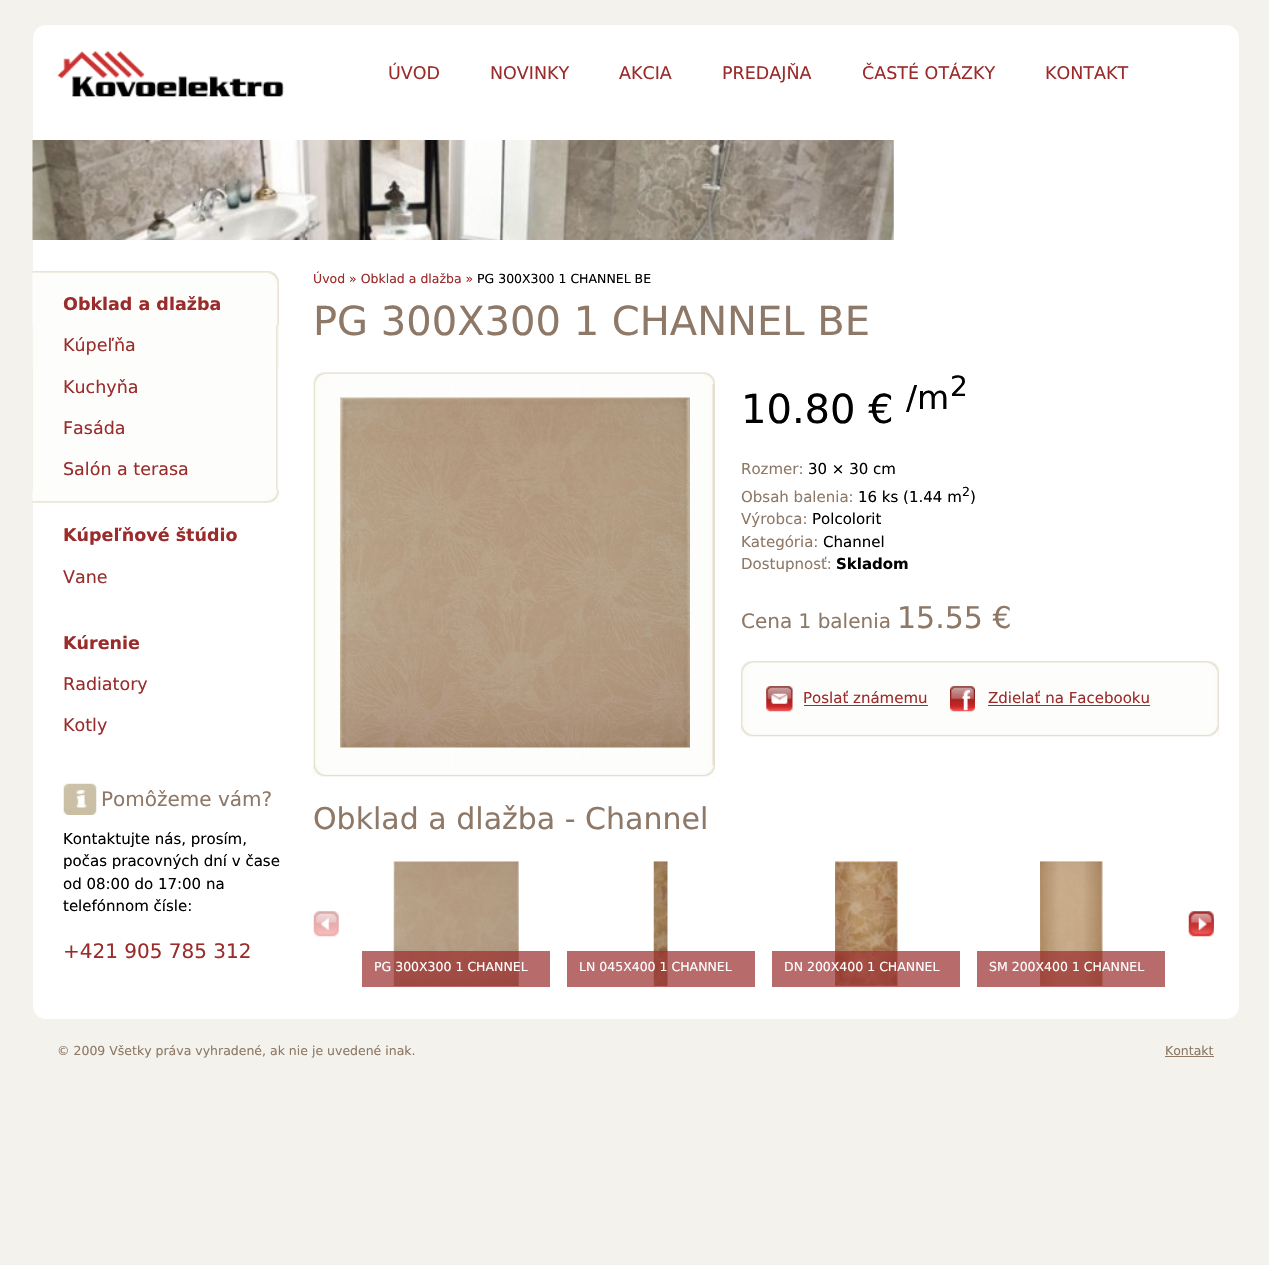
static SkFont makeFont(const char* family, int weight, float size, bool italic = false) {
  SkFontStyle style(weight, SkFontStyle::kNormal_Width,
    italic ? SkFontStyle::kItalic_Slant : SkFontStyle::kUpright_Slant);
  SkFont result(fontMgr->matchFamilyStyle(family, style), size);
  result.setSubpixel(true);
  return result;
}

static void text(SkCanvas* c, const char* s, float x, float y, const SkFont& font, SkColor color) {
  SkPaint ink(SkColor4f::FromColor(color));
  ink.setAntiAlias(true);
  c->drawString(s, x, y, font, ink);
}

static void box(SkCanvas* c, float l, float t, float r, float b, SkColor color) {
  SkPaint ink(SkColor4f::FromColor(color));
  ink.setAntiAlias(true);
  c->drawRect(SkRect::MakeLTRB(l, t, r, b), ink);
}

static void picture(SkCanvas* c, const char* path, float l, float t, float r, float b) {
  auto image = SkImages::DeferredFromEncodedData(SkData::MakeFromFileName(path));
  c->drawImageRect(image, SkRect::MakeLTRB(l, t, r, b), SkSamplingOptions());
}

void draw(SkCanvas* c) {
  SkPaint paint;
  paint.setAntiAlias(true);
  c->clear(0xfff4f2ec);
  paint.setColor(0xffffffff);
  c->drawPath(SkPathBuilder().moveTo(46, 25).lineTo(1226, 25).cubicTo(1233, 25, 1239, 31, 1239, 38).lineTo(1239, 140).lineTo(33, 140).lineTo(33, 38).cubicTo(33, 31, 39, 25, 46, 25).close().detach(), paint);
  picture(c, "img_01.png", 57, 51, 284, 97);
  SkFont face1 = makeFont("DejaVu Sans", 400, 17.5f);
  text(c, "ÚVOD", 388, 79, face1, 0xff9a2c2c);
  text(c, "NOVINKY", 490, 79, face1, 0xff9a2c2c);
  text(c, "AKCIA", 619, 79, face1, 0xff9a2c2c);
  text(c, "PREDAJŇA", 722, 79, face1, 0xff9a2c2c);
  text(c, "ČASTÉ OTÁZKY", 862, 79, face1, 0xff9a2c2c);
  text(c, "KONTAKT", 1045, 79, face1, 0xff9a2c2c);
  c->drawPath(SkPathBuilder().moveTo(33, 140).lineTo(1239, 140).lineTo(1239, 1006).cubicTo(1239, 1013, 1233, 1019, 1226, 1019).lineTo(46, 1019).cubicTo(39, 1019, 33, 1013, 33, 1006).close().detach(), paint);
  picture(c, "img_02.png", 32, 140, 894, 240);
  picture(c, "img_03.png", 32, 271, 279, 368);
  SkFont face2 = makeFont("DejaVu Sans", 700, 17.5f);
  text(c, "Obklad a dlažba", 63, 310, face2, 0xff9a2c2c);
  picture(c, "img_04.png", 32, 325, 279, 503);
  text(c, "Kúpeľňa", 63, 351, face1, 0xff9a2c2c);
  text(c, "Kuchyňa", 63, 393, face1, 0xff9a2c2c);
  text(c, "Fasáda", 63, 434, face1, 0xff9a2c2c);
  picture(c, "img_05.png", 32, 490, 279, 503);
  text(c, "Salón a terasa", 63, 475, face1, 0xff9a2c2c);
  text(c, "Kúpeľňové štúdio", 63, 541, face2, 0xff9a2c2c);
  text(c, "Vane", 63, 583, face1, 0xff9a2c2c);
  text(c, "Kúrenie", 63, 649, face2, 0xff9a2c2c);
  text(c, "Radiatory", 63, 690, face1, 0xff9a2c2c);
  text(c, "Kotly", 63, 731, face1, 0xff9a2c2c);
  picture(c, "img_06.png", 63, 783, 97, 815);
  SkFont face3 = makeFont("DejaVu Sans", 400, 20);
  text(c, "Pomôžeme vám?", 101, 806, face3, 0xff8e7867);
  SkFont face4 = makeFont("DejaVu Sans", 400, 15);
  text(c, "Kontaktujte nás, prosím,", 63, 844, face4, 0xff000000);
  text(c, "počas pracovných dní v čase", 63, 866, face4, 0xff000000);
  text(c, "od 08:00 do 17:00 na", 63, 889, face4, 0xff000000);
  text(c, "telefónnom čísle:", 63, 911, face4, 0xff000000);
  text(c, "+421 905 785 312", 63, 958, face3, 0xff9a2c2c);
  SkFont face5 = makeFont("DejaVu Sans", 400, 12.5f);
  text(c, "Úvod » Obklad a dlažba »", 313, 283, face5, 0xff9a2c2c);
  text(c, "PG 300X300 1 CHANNEL BE", 477, 283, face5, 0xff000000);
  SkFont face6 = makeFont("DejaVu Sans", 400, 40);
  text(c, "PG 300X300 1 CHANNEL BE", 313, 335, face6, 0xff8e7867);
  picture(c, "img_07.png", 313, 372, 715, 384);
  picture(c, "img_08.png", 313, 383, 715, 777);
  picture(c, "img_09.png", 313, 765, 715, 777);
  picture(c, "img_10.png", 340, 397, 690, 748);
  text(c, "10.80 €", 741, 423, face6, 0xff000000);
  SkFont face7 = makeFont("DejaVu Sans", 400, 33);
  text(c, "/m", 906, 409, face7, 0xff000000);
  SkFont face8 = makeFont("DejaVu Sans", 400, 28);
  text(c, "2", 950, 396, face8, 0xff000000);
  text(c, "Rozmer:", 741, 474, face4, 0xff8e7867);
  text(c, "30 × 30 cm", 808, 474, face4, 0xff000000);
  text(c, "Obsah balenia:", 741, 502, face4, 0xff8e7867);
  text(c, "16 ks (1.44 m", 858, 502, face4, 0xff000000);
  text(c, "2", 962, 496, face5, 0xff000000);
  text(c, ")", 970, 502, face4, 0xff000000);
  text(c, "Výrobca:", 741, 524, face4, 0xff8e7867);
  text(c, "Polcolorit", 812, 524, face4, 0xff000000);
  text(c, "Kategória:", 741, 547, face4, 0xff8e7867);
  text(c, "Channel", 823, 547, face4, 0xff000000);
  text(c, "Dostupnosť:", 741, 569, face4, 0xff8e7867);
  SkFont face9 = makeFont("DejaVu Sans", 700, 15);
  text(c, "Skladom", 836, 569, face9, 0xff000000);
  text(c, "Cena 1 balenia", 741, 628, face3, 0xff8e7867);
  SkFont face10 = makeFont("DejaVu Sans", 400, 30);
  text(c, "15.55 €", 897, 628, face10, 0xff8e7867);
  picture(c, "img_11.png", 741, 661, 1219, 672);
  picture(c, "img_12.png", 741, 671, 1219, 737);
  picture(c, "img_13.png", 741, 726, 1219, 737);
  picture(c, "img_14.png", 766, 686, 793, 712);
  text(c, "Poslať známemu", 803, 703, face4, 0xff9a2c2c);
  box(c, 804, 705, 928, 706, 0xff9a2c2c);
  picture(c, "img_15.png", 950, 686, 975, 712);
  text(c, "Zdielať na Facebooku", 988, 703, face4, 0xff9a2c2c);
  box(c, 988, 705, 1150, 706, 0xff9a2c2c);
  text(c, "Obklad a dlažba - Channel", 313, 829, face10, 0xff8e7867);
  picture(c, "img_16.png", 313, 911, 339, 937);
  picture(c, "img_17.png", 1213, 917, 1214, 930);
  picture(c, "img_18.png", 1188, 911, 1214, 937);
  picture(c, "img_19.png", 393, 861, 519, 987);
  box(c, 362, 951, 550, 987, 0xb39a2c2c);
  text(c, "PG 300X300 1 CHANNEL", 374, 971, face5, 0xffffffff);
  picture(c, "img_20.png", 653, 861, 668, 987);
  box(c, 567, 951, 755, 987, 0xb39a2c2c);
  text(c, "LN 045X400 1 CHANNEL", 579, 971, face5, 0xffffffff);
  picture(c, "img_21.png", 835, 861, 898, 987);
  box(c, 772, 951, 960, 987, 0xb39a2c2c);
  text(c, "DN 200X400 1 CHANNEL", 784, 971, face5, 0xffffffff);
  picture(c, "img_22.png", 1040, 861, 1103, 987);
  box(c, 977, 951, 1165, 987, 0xb39a2c2c);
  text(c, "SM 200X400 1 CHANNEL", 989, 971, face5, 0xffffffff);
  text(c, "© 2009 Všetky práva vyhradené, ak nie je uvedené inak.", 57, 1055, face5, 0xff8e7867);
  text(c, "Kontakt", 1165, 1055, face5, 0xff8e7867);
  box(c, 1165, 1056, 1214, 1057, 0xff8e7867);
}
